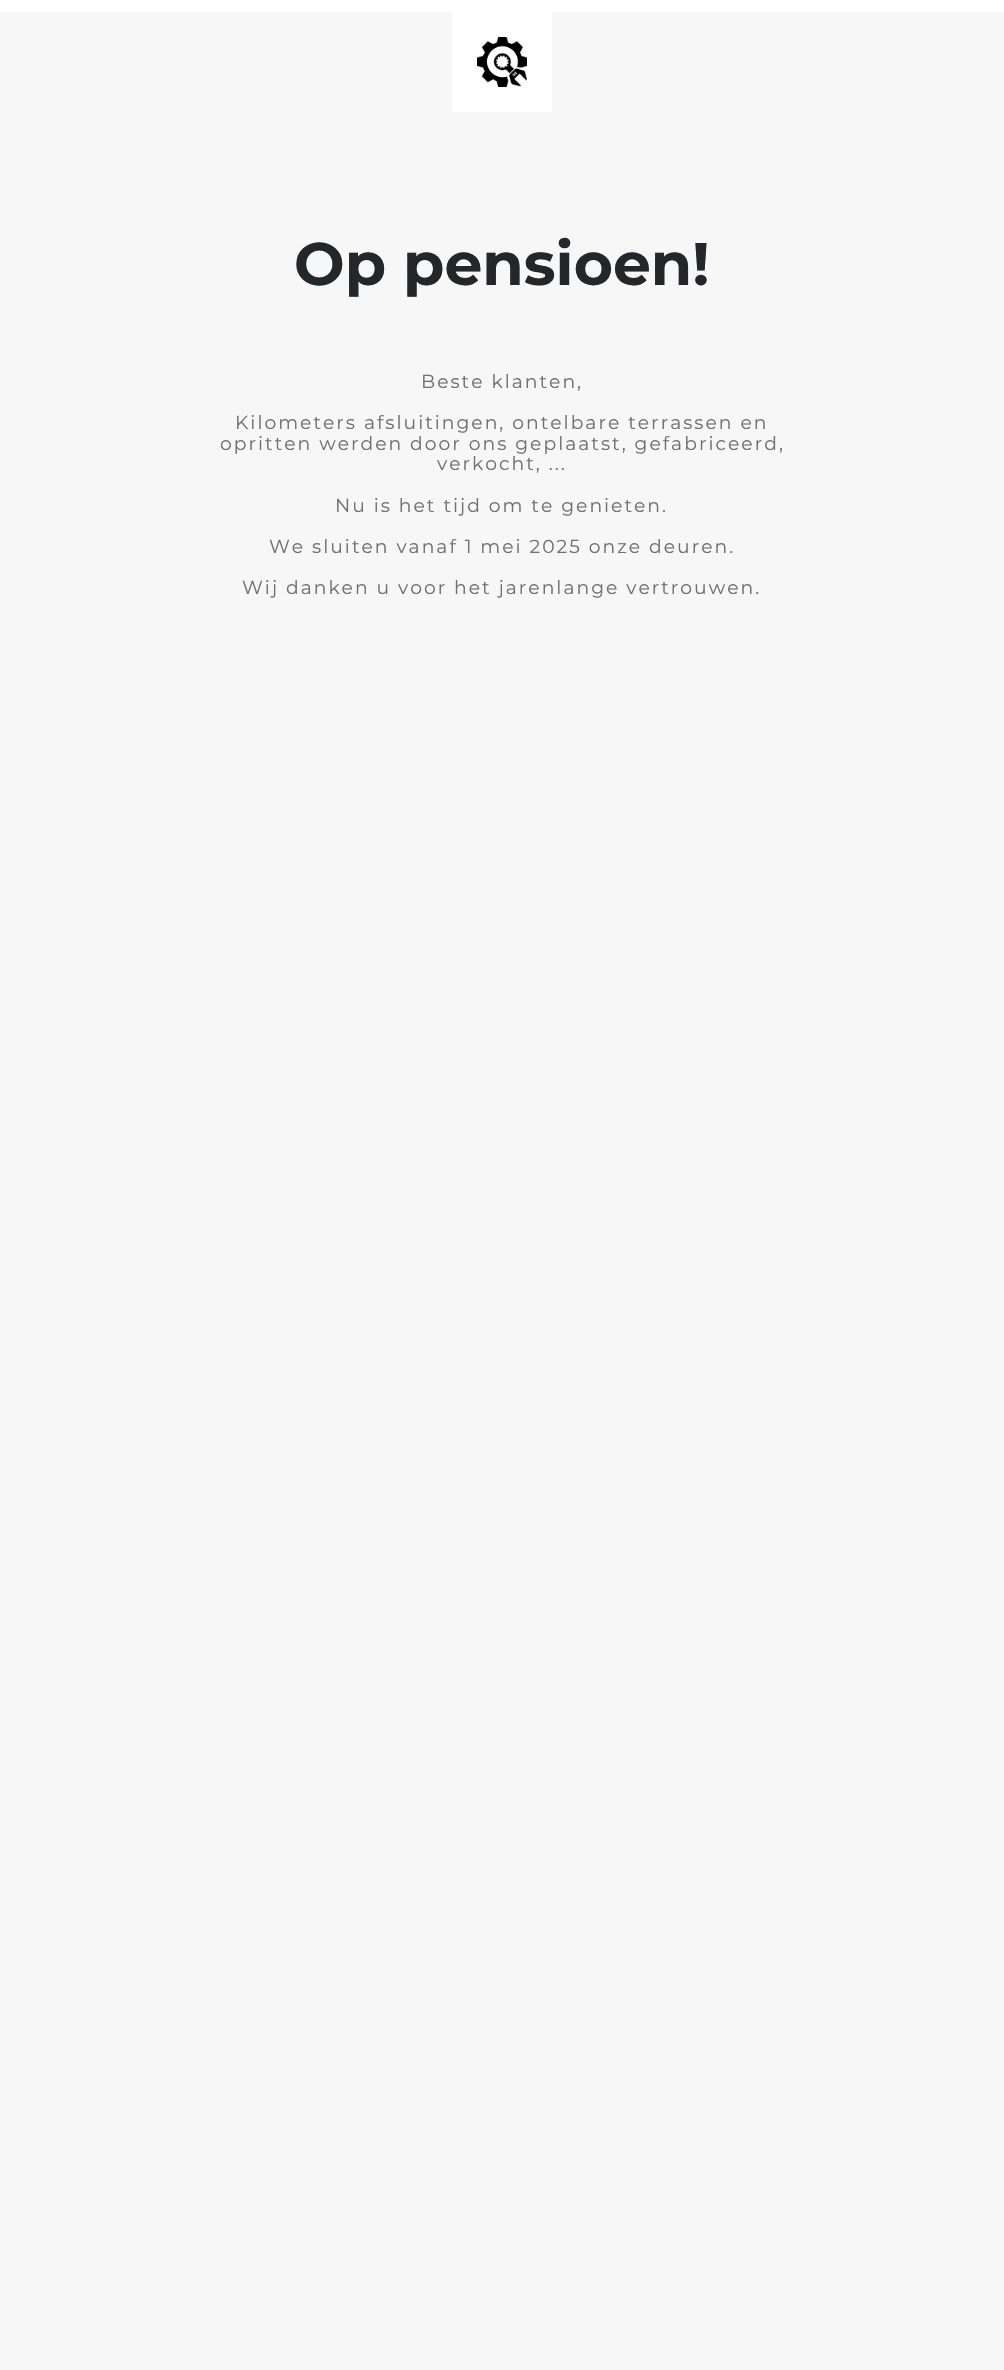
static SkFont makeFont(const char* family, int weight, float size, bool italic = false) {
  SkFontStyle style(weight, SkFontStyle::kNormal_Width,
    italic ? SkFontStyle::kItalic_Slant : SkFontStyle::kUpright_Slant);
  SkFont result(fontMgr->matchFamilyStyle(family, style), size);
  result.setSubpixel(true);
  return result;
}

static void text(SkCanvas* c, const char* s, float x, float y, const SkFont& font, SkColor color) {
  SkPaint ink(SkColor4f::FromColor(color));
  ink.setAntiAlias(true);
  c->drawString(s, x, y, font, ink);
}

static void spacedText(SkCanvas* c, const char* s, float x, float y, const SkFont& font, const SkPaint& ink, float letter, float word) {
  std::vector<SkGlyphID> glyphs(font.countText(s, strlen(s), SkTextEncoding::kUTF8));
  std::vector<float> xs(glyphs.size());
  font.textToGlyphs(s, strlen(s), SkTextEncoding::kUTF8, glyphs);
  font.getXPos(glyphs, xs, x);
  float extra = 0;
  for (size_t i = 0; i < glyphs.size(); i++) {
    xs[i] += extra;
    extra += letter + word * (glyphs[i] == font.unicharToGlyph(' '));
  }
  c->drawTextBlob(SkTextBlob::MakeFromPosHGlyphs(glyphs, xs, y, font), 0, 0, ink);
}

static void box(SkCanvas* c, float l, float t, float r, float b, SkColor color) {
  SkPaint ink(SkColor4f::FromColor(color));
  ink.setAntiAlias(true);
  c->drawRect(SkRect::MakeLTRB(l, t, r, b), ink);
}

static void picture(SkCanvas* c, const char* path, float l, float t, float r, float b) {
  auto image = SkImages::DeferredFromEncodedData(SkData::MakeFromFileName(path));
  c->drawImageRect(image, SkRect::MakeLTRB(l, t, r, b), SkSamplingOptions());
}

void draw(SkCanvas* c) {
  SkPaint paint;
  paint.setAntiAlias(true);
  c->clear(0xfff7f7f7);
  box(c, 0, 0, 1004, 12, 0xffffffff);
  box(c, 452, 12, 552, 112, 0xffffffff);
  picture(c, "img_01.png", 477, 37, 527, 87);
  SkFont face1 = makeFont("Montserrat", 700, 60);
  text(c, "Op pensioen!", 294, 285, face1, 0xff23272a);
  SkFont face2 = makeFont("Montserrat", 400, 18.75f);
  paint.setColor(0xff707070);
  spacedText(c, "Beste klanten,", 421, 388, face2, paint, 2, 0);
  spacedText(c, "Kilometers afsluitingen, ontelbare terrassen en", 235, 429, face2, paint, 2, 0);
  spacedText(c, "opritten werden door ons geplaatst, gefabriceerd,", 220, 450, face2, paint, 2, 0);
  spacedText(c, "verkocht, ...", 437, 470, face2, paint, 2, 0);
  spacedText(c, "Nu is het tijd om te genieten.", 335, 512, face2, paint, 2, 0);
  spacedText(c, "We sluiten vanaf 1 mei 2025 onze deuren.", 269, 553, face2, paint, 2, 0);
  spacedText(c, "Wij danken u voor het jarenlange vertrouwen.", 242, 594, face2, paint, 2, 0);
}
